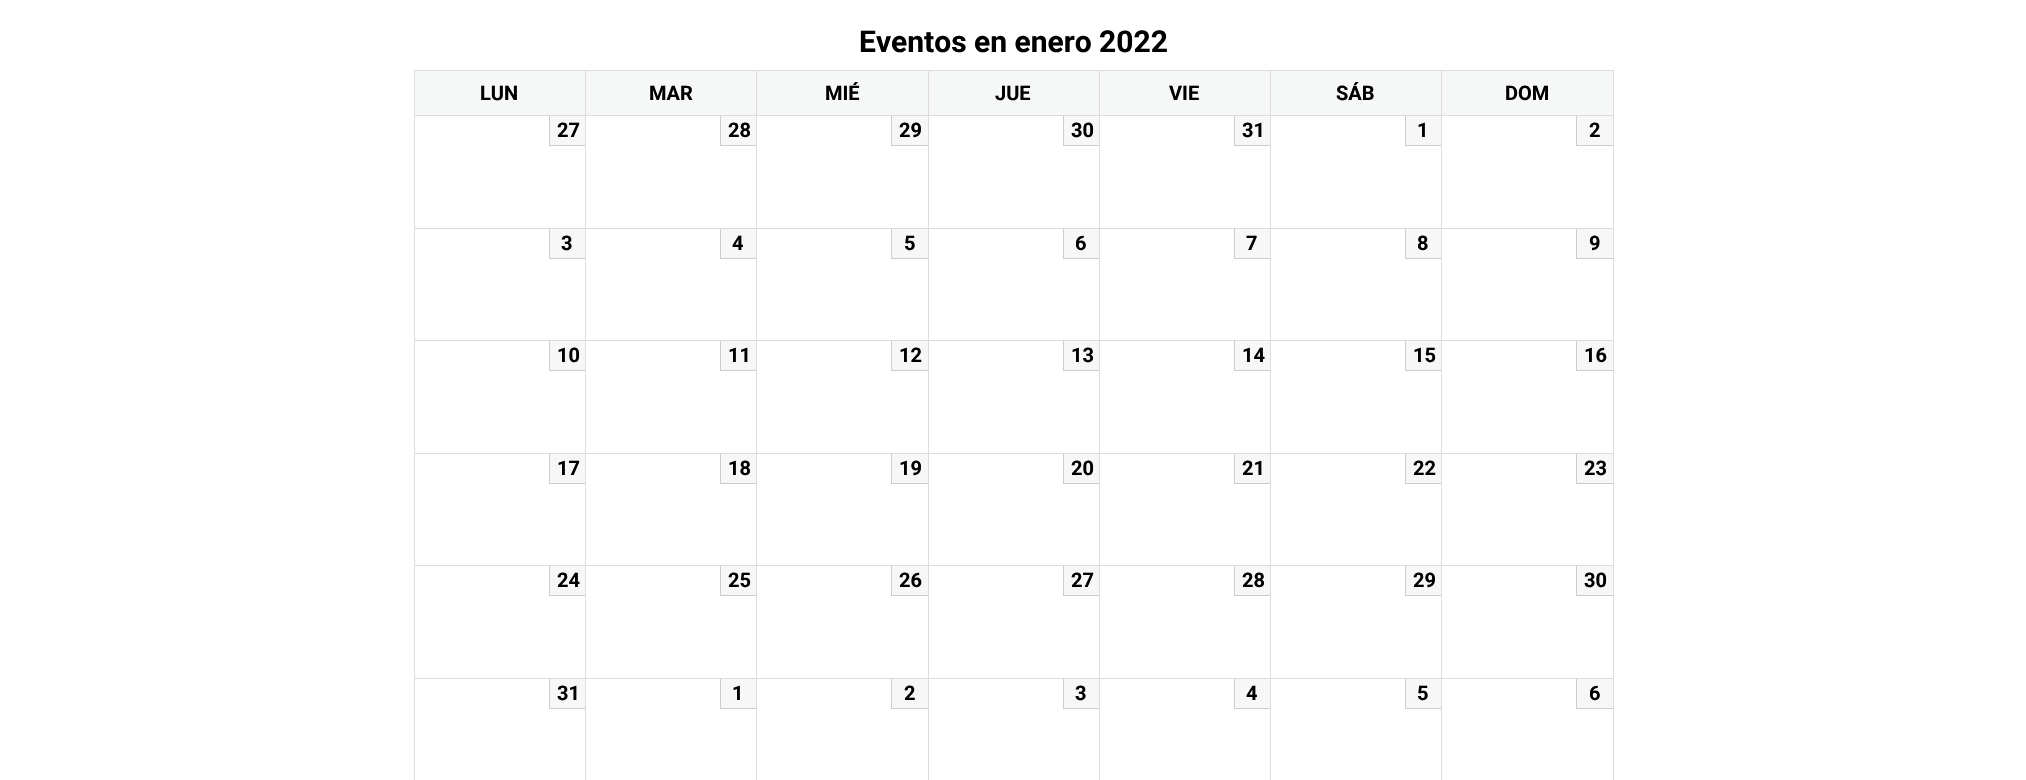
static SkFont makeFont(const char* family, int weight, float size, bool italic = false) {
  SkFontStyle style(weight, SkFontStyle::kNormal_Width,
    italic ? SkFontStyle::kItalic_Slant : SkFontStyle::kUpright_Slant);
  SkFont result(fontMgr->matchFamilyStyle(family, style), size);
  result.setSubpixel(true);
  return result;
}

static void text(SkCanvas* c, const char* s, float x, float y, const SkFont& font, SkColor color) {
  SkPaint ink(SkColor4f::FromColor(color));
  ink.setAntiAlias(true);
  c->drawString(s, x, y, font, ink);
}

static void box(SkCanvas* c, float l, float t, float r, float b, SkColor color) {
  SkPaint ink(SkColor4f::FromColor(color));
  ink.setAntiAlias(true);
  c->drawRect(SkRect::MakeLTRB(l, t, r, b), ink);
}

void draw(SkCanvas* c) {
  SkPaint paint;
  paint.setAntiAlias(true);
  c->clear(0xffffffff);
  SkFont face1 = makeFont("Roboto", 700, 30);
  text(c, "Eventos en enero 2022", 859, 52, face1, 0xff000000);
  box(c, 414, 70, 1614, 71, 0xffdcdcde);
  box(c, 414, 70, 415, 780, 0xffdcdcde);
  box(c, 415, 71, 585, 115, 0xfff6f7f7);
  SkFont face2 = makeFont("Roboto", 700, 20);
  text(c, "LUN", 480, 100, face2, 0xff000000);
  box(c, 586, 71, 756, 115, 0xfff6f7f7);
  box(c, 1441, 115, 1614, 116, 0xffdcdcde);
  box(c, 1441, 228, 1614, 229, 0xffdcdcde);
  box(c, 1441, 340, 1614, 341, 0xffdcdcde);
  box(c, 1441, 453, 1614, 454, 0xffdcdcde);
  box(c, 1441, 565, 1614, 566, 0xffdcdcde);
  box(c, 1441, 678, 1614, 679, 0xffdcdcde);
  box(c, 1441, 678, 1442, 780, 0xffdcdcde);
  box(c, 1270, 678, 1443, 679, 0xffdcdcde);
  box(c, 1441, 565, 1442, 679, 0xffdcdcde);
  box(c, 1270, 565, 1443, 566, 0xffdcdcde);
  box(c, 1441, 453, 1442, 566, 0xffdcdcde);
  box(c, 1270, 453, 1443, 454, 0xffdcdcde);
  box(c, 1441, 340, 1442, 454, 0xffdcdcde);
  box(c, 1270, 340, 1443, 341, 0xffdcdcde);
  box(c, 1441, 228, 1442, 341, 0xffdcdcde);
  box(c, 1270, 228, 1443, 229, 0xffdcdcde);
  box(c, 1441, 115, 1442, 229, 0xffdcdcde);
  box(c, 1270, 115, 1443, 116, 0xffdcdcde);
  box(c, 1270, 678, 1271, 780, 0xffdcdcde);
  box(c, 1099, 678, 1271, 679, 0xffdcdcde);
  box(c, 1270, 565, 1271, 679, 0xffdcdcde);
  box(c, 1099, 565, 1271, 566, 0xffdcdcde);
  box(c, 1270, 453, 1271, 566, 0xffdcdcde);
  box(c, 1099, 453, 1271, 454, 0xffdcdcde);
  box(c, 1270, 340, 1271, 454, 0xffdcdcde);
  box(c, 1099, 340, 1271, 341, 0xffdcdcde);
  box(c, 1270, 228, 1271, 341, 0xffdcdcde);
  box(c, 1099, 228, 1271, 229, 0xffdcdcde);
  box(c, 1270, 115, 1271, 229, 0xffdcdcde);
  box(c, 1099, 115, 1271, 116, 0xffdcdcde);
  box(c, 1099, 678, 1100, 780, 0xffdcdcde);
  box(c, 928, 678, 1100, 679, 0xffdcdcde);
  box(c, 1099, 565, 1100, 679, 0xffdcdcde);
  box(c, 928, 565, 1100, 566, 0xffdcdcde);
  box(c, 1099, 453, 1100, 566, 0xffdcdcde);
  box(c, 928, 453, 1100, 454, 0xffdcdcde);
  box(c, 1099, 340, 1100, 454, 0xffdcdcde);
  box(c, 928, 340, 1100, 341, 0xffdcdcde);
  box(c, 1099, 228, 1100, 341, 0xffdcdcde);
  box(c, 928, 228, 1100, 229, 0xffdcdcde);
  box(c, 1099, 115, 1100, 229, 0xffdcdcde);
  box(c, 928, 115, 1100, 116, 0xffdcdcde);
  box(c, 928, 678, 929, 780, 0xffdcdcde);
  box(c, 756, 678, 929, 679, 0xffdcdcde);
  box(c, 928, 565, 929, 679, 0xffdcdcde);
  box(c, 756, 565, 929, 566, 0xffdcdcde);
  box(c, 928, 453, 929, 566, 0xffdcdcde);
  box(c, 756, 453, 929, 454, 0xffdcdcde);
  box(c, 928, 340, 929, 454, 0xffdcdcde);
  box(c, 756, 340, 929, 341, 0xffdcdcde);
  box(c, 928, 228, 929, 341, 0xffdcdcde);
  box(c, 756, 228, 929, 229, 0xffdcdcde);
  box(c, 928, 115, 929, 229, 0xffdcdcde);
  box(c, 756, 115, 929, 116, 0xffdcdcde);
  box(c, 756, 678, 757, 780, 0xffdcdcde);
  box(c, 585, 678, 758, 679, 0xffdcdcde);
  box(c, 756, 565, 757, 679, 0xffdcdcde);
  box(c, 585, 565, 758, 566, 0xffdcdcde);
  box(c, 756, 453, 757, 566, 0xffdcdcde);
  box(c, 585, 453, 758, 454, 0xffdcdcde);
  box(c, 756, 340, 757, 454, 0xffdcdcde);
  box(c, 585, 340, 758, 341, 0xffdcdcde);
  box(c, 756, 228, 757, 341, 0xffdcdcde);
  box(c, 585, 228, 758, 229, 0xffdcdcde);
  box(c, 756, 115, 757, 229, 0xffdcdcde);
  box(c, 585, 115, 758, 116, 0xffdcdcde);
  box(c, 585, 678, 586, 780, 0xffdcdcde);
  box(c, 414, 678, 586, 679, 0xffdcdcde);
  box(c, 585, 565, 586, 679, 0xffdcdcde);
  box(c, 414, 565, 586, 566, 0xffdcdcde);
  box(c, 585, 453, 586, 566, 0xffdcdcde);
  box(c, 414, 453, 586, 454, 0xffdcdcde);
  box(c, 585, 340, 586, 454, 0xffdcdcde);
  box(c, 414, 340, 586, 341, 0xffdcdcde);
  box(c, 585, 228, 586, 341, 0xffdcdcde);
  box(c, 414, 228, 586, 229, 0xffdcdcde);
  box(c, 585, 115, 586, 229, 0xffdcdcde);
  box(c, 414, 115, 586, 116, 0xffdcdcde);
  box(c, 585, 70, 586, 116, 0xffdcdcde);
  text(c, "MAR", 649, 100, face2, 0xff000000);
  box(c, 757, 71, 928, 115, 0xfff6f7f7);
  box(c, 756, 70, 757, 116, 0xffdcdcde);
  text(c, "MIÉ", 825, 100, face2, 0xff000000);
  box(c, 929, 71, 1099, 115, 0xfff6f7f7);
  box(c, 928, 70, 929, 116, 0xffdcdcde);
  text(c, "JUE", 995, 100, face2, 0xff000000);
  box(c, 1100, 71, 1270, 115, 0xfff6f7f7);
  box(c, 1099, 70, 1100, 116, 0xffdcdcde);
  text(c, "VIE", 1169, 100, face2, 0xff000000);
  box(c, 1271, 71, 1441, 115, 0xfff6f7f7);
  box(c, 1270, 70, 1271, 116, 0xffdcdcde);
  text(c, "SÁB", 1336, 100, face2, 0xff000000);
  box(c, 1442, 71, 1613, 115, 0xfff6f7f7);
  box(c, 1441, 70, 1442, 116, 0xffdcdcde);
  text(c, "DOM", 1505, 100, face2, 0xff000000);
  box(c, 550, 116, 585, 145, 0xfff7f7f7);
  box(c, 549, 145, 585, 146, 0xffcccccc);
  box(c, 549, 116, 550, 146, 0xffcccccc);
  text(c, "27", 557, 137, face2, 0xff000000);
  box(c, 721, 116, 756, 145, 0xfff7f7f7);
  box(c, 720, 145, 756, 146, 0xffcccccc);
  box(c, 720, 116, 721, 146, 0xffcccccc);
  text(c, "28", 728, 137, face2, 0xff000000);
  box(c, 892, 116, 928, 145, 0xfff7f7f7);
  box(c, 891, 145, 928, 146, 0xffcccccc);
  box(c, 891, 116, 892, 146, 0xffcccccc);
  text(c, "29", 899, 137, face2, 0xff000000);
  box(c, 1064, 116, 1099, 145, 0xfff7f7f7);
  box(c, 1063, 145, 1099, 146, 0xffcccccc);
  box(c, 1063, 116, 1064, 146, 0xffcccccc);
  text(c, "30", 1071, 137, face2, 0xff000000);
  box(c, 1235, 116, 1270, 145, 0xfff7f7f7);
  box(c, 1234, 145, 1270, 146, 0xffcccccc);
  box(c, 1234, 116, 1235, 146, 0xffcccccc);
  text(c, "31", 1242, 137, face2, 0xff000000);
  box(c, 1406, 116, 1441, 145, 0xfff7f7f7);
  box(c, 1405, 145, 1441, 146, 0xffcccccc);
  box(c, 1405, 116, 1406, 146, 0xffcccccc);
  text(c, "1", 1417, 137, face2, 0xff000000);
  box(c, 1613, 678, 1614, 780, 0xffdcdcde);
  box(c, 1613, 565, 1614, 679, 0xffdcdcde);
  box(c, 1613, 453, 1614, 566, 0xffdcdcde);
  box(c, 1613, 340, 1614, 454, 0xffdcdcde);
  box(c, 1613, 228, 1614, 341, 0xffdcdcde);
  box(c, 1613, 70, 1614, 229, 0xffdcdcde);
  box(c, 1577, 116, 1613, 145, 0xfff7f7f7);
  box(c, 1576, 145, 1613, 146, 0xffcccccc);
  box(c, 1576, 116, 1577, 146, 0xffcccccc);
  text(c, "2", 1589, 137, face2, 0xff000000);
  box(c, 550, 229, 585, 258, 0xfff7f7f7);
  box(c, 549, 258, 585, 259, 0xffcccccc);
  box(c, 549, 229, 550, 259, 0xffcccccc);
  text(c, "3", 561, 250, face2, 0xff000000);
  box(c, 721, 229, 756, 258, 0xfff7f7f7);
  box(c, 720, 258, 756, 259, 0xffcccccc);
  box(c, 720, 229, 721, 259, 0xffcccccc);
  text(c, "4", 732, 250, face2, 0xff000000);
  box(c, 892, 229, 928, 258, 0xfff7f7f7);
  box(c, 891, 258, 928, 259, 0xffcccccc);
  box(c, 891, 229, 892, 259, 0xffcccccc);
  text(c, "5", 904, 250, face2, 0xff000000);
  box(c, 1064, 229, 1099, 258, 0xfff7f7f7);
  box(c, 1063, 258, 1099, 259, 0xffcccccc);
  box(c, 1063, 229, 1064, 259, 0xffcccccc);
  text(c, "6", 1075, 250, face2, 0xff000000);
  box(c, 1235, 229, 1270, 258, 0xfff7f7f7);
  box(c, 1234, 258, 1270, 259, 0xffcccccc);
  box(c, 1234, 229, 1235, 259, 0xffcccccc);
  text(c, "7", 1246, 250, face2, 0xff000000);
  box(c, 1406, 229, 1441, 258, 0xfff7f7f7);
  box(c, 1405, 258, 1441, 259, 0xffcccccc);
  box(c, 1405, 229, 1406, 259, 0xffcccccc);
  text(c, "8", 1417, 250, face2, 0xff000000);
  box(c, 1577, 229, 1613, 258, 0xfff7f7f7);
  box(c, 1576, 258, 1613, 259, 0xffcccccc);
  box(c, 1576, 229, 1577, 259, 0xffcccccc);
  text(c, "9", 1589, 250, face2, 0xff000000);
  box(c, 550, 341, 585, 370, 0xfff7f7f7);
  box(c, 549, 370, 585, 371, 0xffcccccc);
  box(c, 549, 341, 550, 371, 0xffcccccc);
  text(c, "10", 557, 362, face2, 0xff000000);
  box(c, 721, 341, 756, 370, 0xfff7f7f7);
  box(c, 720, 370, 756, 371, 0xffcccccc);
  box(c, 720, 341, 721, 371, 0xffcccccc);
  text(c, "11", 728, 362, face2, 0xff000000);
  box(c, 892, 341, 928, 370, 0xfff7f7f7);
  box(c, 891, 370, 928, 371, 0xffcccccc);
  box(c, 891, 341, 892, 371, 0xffcccccc);
  text(c, "12", 899, 362, face2, 0xff000000);
  box(c, 1064, 341, 1099, 370, 0xfff7f7f7);
  box(c, 1063, 370, 1099, 371, 0xffcccccc);
  box(c, 1063, 341, 1064, 371, 0xffcccccc);
  text(c, "13", 1071, 362, face2, 0xff000000);
  box(c, 1235, 341, 1270, 370, 0xfff7f7f7);
  box(c, 1234, 370, 1270, 371, 0xffcccccc);
  box(c, 1234, 341, 1235, 371, 0xffcccccc);
  text(c, "14", 1242, 362, face2, 0xff000000);
  box(c, 1406, 341, 1441, 370, 0xfff7f7f7);
  box(c, 1405, 370, 1441, 371, 0xffcccccc);
  box(c, 1405, 341, 1406, 371, 0xffcccccc);
  text(c, "15", 1413, 362, face2, 0xff000000);
  box(c, 1577, 341, 1613, 370, 0xfff7f7f7);
  box(c, 1576, 370, 1613, 371, 0xffcccccc);
  box(c, 1576, 341, 1577, 371, 0xffcccccc);
  text(c, "16", 1584, 362, face2, 0xff000000);
  box(c, 550, 454, 585, 483, 0xfff7f7f7);
  box(c, 549, 483, 585, 484, 0xffcccccc);
  box(c, 549, 454, 550, 484, 0xffcccccc);
  text(c, "17", 557, 475, face2, 0xff000000);
  box(c, 721, 454, 756, 483, 0xfff7f7f7);
  box(c, 720, 483, 756, 484, 0xffcccccc);
  box(c, 720, 454, 721, 484, 0xffcccccc);
  text(c, "18", 728, 475, face2, 0xff000000);
  box(c, 892, 454, 928, 483, 0xfff7f7f7);
  box(c, 891, 483, 928, 484, 0xffcccccc);
  box(c, 891, 454, 892, 484, 0xffcccccc);
  text(c, "19", 899, 475, face2, 0xff000000);
  box(c, 1064, 454, 1099, 483, 0xfff7f7f7);
  box(c, 1063, 483, 1099, 484, 0xffcccccc);
  box(c, 1063, 454, 1064, 484, 0xffcccccc);
  text(c, "20", 1071, 475, face2, 0xff000000);
  box(c, 1235, 454, 1270, 483, 0xfff7f7f7);
  box(c, 1234, 483, 1270, 484, 0xffcccccc);
  box(c, 1234, 454, 1235, 484, 0xffcccccc);
  text(c, "21", 1242, 475, face2, 0xff000000);
  box(c, 1406, 454, 1441, 483, 0xfff7f7f7);
  box(c, 1405, 483, 1441, 484, 0xffcccccc);
  box(c, 1405, 454, 1406, 484, 0xffcccccc);
  text(c, "22", 1413, 475, face2, 0xff000000);
  box(c, 1577, 454, 1613, 483, 0xfff7f7f7);
  box(c, 1576, 483, 1613, 484, 0xffcccccc);
  box(c, 1576, 454, 1577, 484, 0xffcccccc);
  text(c, "23", 1584, 475, face2, 0xff000000);
  box(c, 550, 566, 585, 595, 0xfff7f7f7);
  box(c, 549, 595, 585, 596, 0xffcccccc);
  box(c, 549, 566, 550, 596, 0xffcccccc);
  text(c, "24", 557, 587, face2, 0xff000000);
  box(c, 721, 566, 756, 595, 0xfff7f7f7);
  box(c, 720, 595, 756, 596, 0xffcccccc);
  box(c, 720, 566, 721, 596, 0xffcccccc);
  text(c, "25", 728, 587, face2, 0xff000000);
  box(c, 892, 566, 928, 595, 0xfff7f7f7);
  box(c, 891, 595, 928, 596, 0xffcccccc);
  box(c, 891, 566, 892, 596, 0xffcccccc);
  text(c, "26", 899, 587, face2, 0xff000000);
  box(c, 1064, 566, 1099, 595, 0xfff7f7f7);
  box(c, 1063, 595, 1099, 596, 0xffcccccc);
  box(c, 1063, 566, 1064, 596, 0xffcccccc);
  text(c, "27", 1071, 587, face2, 0xff000000);
  box(c, 1235, 566, 1270, 595, 0xfff7f7f7);
  box(c, 1234, 595, 1270, 596, 0xffcccccc);
  box(c, 1234, 566, 1235, 596, 0xffcccccc);
  text(c, "28", 1242, 587, face2, 0xff000000);
  box(c, 1406, 566, 1441, 595, 0xfff7f7f7);
  box(c, 1405, 595, 1441, 596, 0xffcccccc);
  box(c, 1405, 566, 1406, 596, 0xffcccccc);
  text(c, "29", 1413, 587, face2, 0xff000000);
  box(c, 1577, 566, 1613, 595, 0xfff7f7f7);
  box(c, 1576, 595, 1613, 596, 0xffcccccc);
  box(c, 1576, 566, 1577, 596, 0xffcccccc);
  text(c, "30", 1584, 587, face2, 0xff000000);
  box(c, 550, 679, 585, 708, 0xfff7f7f7);
  box(c, 549, 708, 585, 709, 0xffcccccc);
  box(c, 549, 679, 550, 709, 0xffcccccc);
  text(c, "31", 557, 700, face2, 0xff000000);
  box(c, 721, 679, 756, 708, 0xfff7f7f7);
  box(c, 720, 708, 756, 709, 0xffcccccc);
  box(c, 720, 679, 721, 709, 0xffcccccc);
  text(c, "1", 732, 700, face2, 0xff000000);
  box(c, 892, 679, 928, 708, 0xfff7f7f7);
  box(c, 891, 708, 928, 709, 0xffcccccc);
  box(c, 891, 679, 892, 709, 0xffcccccc);
  text(c, "2", 904, 700, face2, 0xff000000);
  box(c, 1064, 679, 1099, 708, 0xfff7f7f7);
  box(c, 1063, 708, 1099, 709, 0xffcccccc);
  box(c, 1063, 679, 1064, 709, 0xffcccccc);
  text(c, "3", 1075, 700, face2, 0xff000000);
  box(c, 1235, 679, 1270, 708, 0xfff7f7f7);
  box(c, 1234, 708, 1270, 709, 0xffcccccc);
  box(c, 1234, 679, 1235, 709, 0xffcccccc);
  text(c, "4", 1246, 700, face2, 0xff000000);
  box(c, 1406, 679, 1441, 708, 0xfff7f7f7);
  box(c, 1405, 708, 1441, 709, 0xffcccccc);
  box(c, 1405, 679, 1406, 709, 0xffcccccc);
  text(c, "5", 1417, 700, face2, 0xff000000);
  box(c, 1577, 679, 1613, 708, 0xfff7f7f7);
  box(c, 1576, 708, 1613, 709, 0xffcccccc);
  box(c, 1576, 679, 1577, 709, 0xffcccccc);
  text(c, "6", 1589, 700, face2, 0xff000000);
}
